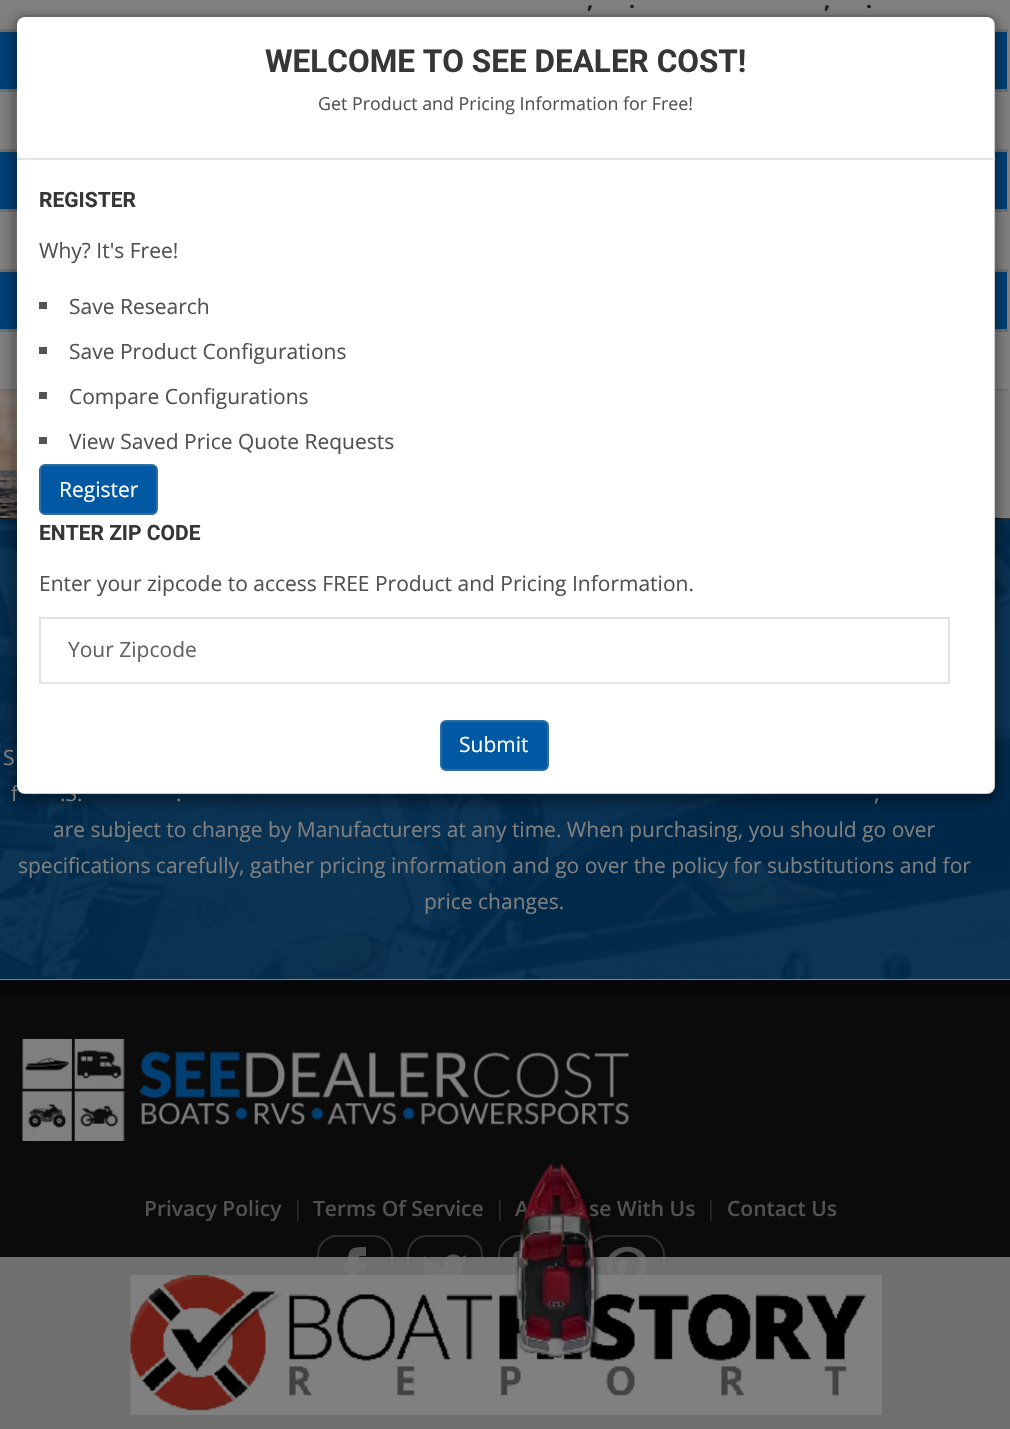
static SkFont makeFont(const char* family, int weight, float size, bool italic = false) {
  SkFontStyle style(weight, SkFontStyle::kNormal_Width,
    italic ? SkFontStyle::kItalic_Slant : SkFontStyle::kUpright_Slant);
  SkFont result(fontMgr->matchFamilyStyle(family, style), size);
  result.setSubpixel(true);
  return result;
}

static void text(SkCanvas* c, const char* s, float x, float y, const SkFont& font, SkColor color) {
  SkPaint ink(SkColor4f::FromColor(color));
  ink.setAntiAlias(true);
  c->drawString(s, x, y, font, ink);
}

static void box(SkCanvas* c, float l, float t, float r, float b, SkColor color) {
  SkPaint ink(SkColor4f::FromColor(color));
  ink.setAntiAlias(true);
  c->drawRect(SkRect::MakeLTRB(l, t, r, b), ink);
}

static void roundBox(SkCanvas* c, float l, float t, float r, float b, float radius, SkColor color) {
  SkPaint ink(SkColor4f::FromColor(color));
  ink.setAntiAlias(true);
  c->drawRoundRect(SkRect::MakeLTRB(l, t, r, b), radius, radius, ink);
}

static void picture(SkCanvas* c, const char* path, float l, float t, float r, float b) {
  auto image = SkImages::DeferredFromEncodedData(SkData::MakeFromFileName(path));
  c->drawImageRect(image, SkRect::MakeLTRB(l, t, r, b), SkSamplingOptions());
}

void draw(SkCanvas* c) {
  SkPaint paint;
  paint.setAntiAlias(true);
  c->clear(0xff808080);
  box(c, 0, 32, 1007, 329, 0xff003f73);
  SkFont face1 = makeFont("Open Sans", 700, 21);
  text(c, ",", 587, 8, face1, 0xff191919);
  text(c, ".", 629, 8, face1, 0xff191919);
  box(c, 995, 29, 1008, 32, 0xff6f6f6f);
  text(c, ",", 824, 8, face1, 0xff191919);
  text(c, ".", 866, 8, face1, 0xff191919);
  box(c, 0, 29, 17, 32, 0xff6f6f6f);
  box(c, 0, 89, 17, 92, 0xff6f6f6f);
  box(c, 995, 89, 1008, 92, 0xff6f6f6f);
  box(c, 0, 92, 1007, 149, 0xff808080);
  box(c, 0, 149, 17, 152, 0xff6f6f6f);
  box(c, 995, 149, 1008, 152, 0xff6f6f6f);
  box(c, 0, 209, 17, 212, 0xff6f6f6f);
  box(c, 995, 209, 1008, 212, 0xff6f6f6f);
  box(c, 0, 212, 1007, 269, 0xff808080);
  box(c, 0, 269, 17, 272, 0xff6f6f6f);
  box(c, 995, 269, 1008, 272, 0xff6f6f6f);
  box(c, 0, 329, 17, 332, 0xff6f6f6f);
  box(c, 995, 329, 1008, 332, 0xff6f6f6f);
  box(c, 0, 389, 17, 391, 0xff6f6f6f);
  box(c, 995, 389, 1008, 391, 0xff6f6f6f);
  picture(c, "img_01.png", 0, 391, 1010, 518);
  picture(c, "img_02.png", 0, 518, 1010, 979);
  c->save();
  c->clipPath(SkPathBuilder(SkPathFillType::kEvenOdd).moveTo(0, 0).lineTo(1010, 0).lineTo(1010, 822).lineTo(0, 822).close().moveTo(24, 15).lineTo(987, 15).cubicTo(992, 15, 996, 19, 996, 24).lineTo(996, 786).cubicTo(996, 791, 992, 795, 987, 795).lineTo(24, 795).cubicTo(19, 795, 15, 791, 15, 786).lineTo(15, 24).cubicTo(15, 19, 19, 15, 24, 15).close().detach(), true);
  paint.setColor(0x80000000);
  paint.setMaskFilter(SkMaskFilter::MakeBlur(kNormal_SkBlurStyle, 7));
  c->drawRoundRect(SkRect::MakeLTRB(15, 20, 996, 800), 9, 9, paint);
  paint.setMaskFilter(nullptr);
  c->restore();
  SkFont face2 = makeFont("Open Sans", 400, 21);
  text(c, "f", 11, 801, face2, 0xff808080);
  text(c, ".S.", 60, 801, face2, 0xff808080);
  roundBox(c, 17, 17, 995, 794, 8, 0xffffffff);
  paint.setStyle(SkPaint::kStroke_Style);
  paint.setStrokeWidth(2);
  paint.setColor(0x33000000);
  c->drawRoundRect(SkRect::MakeLTRB(16, 16, 995, 794), 8, 8, paint);
  box(c, 17, 158, 995, 160, 0xffe5e5e5);
  SkFont face3 = makeFont("Roboto", 700, 31.5f);
  text(c, "WELCOME TO SEE DEALER COST!", 265, 72, face3, 0xff363636);
  SkFont face4 = makeFont("Open Sans", 400, 17.85f);
  text(c, "Get Product and Pricing Information for Free!", 318, 110, face4, 0xff515151);
  SkFont face5 = makeFont("Roboto", 700, 21);
  text(c, "REGISTER", 39, 207, face5, 0xff363636);
  text(c, "Why? It's Free!", 39, 258, face2, 0xff515151);
  box(c, 39, 302, 47, 309, 0xff555555);
  text(c, "Save Research", 69, 314, face2, 0xff515151);
  box(c, 39, 347, 47, 354, 0xff555555);
  text(c, "Save Product Configurations", 69, 359, face2, 0xff515151);
  box(c, 39, 392, 47, 399, 0xff555555);
  text(c, "Compare Configurations", 69, 404, face2, 0xff515151);
  box(c, 39, 437, 47, 444, 0xff555555);
  text(c, "View Saved Price Quote Requests", 69, 449, face2, 0xff515151);
  paint.setStyle(SkPaint::kFill_Style);
  paint.setColor(0xff0059a2);
  c->drawRoundRect(SkRect::MakeLTRB(40, 465, 157, 514), 5, 5, paint);
  paint.setStyle(SkPaint::kStroke_Style);
  paint.setColor(0xff2e6da4);
  c->drawRoundRect(SkRect::MakeLTRB(40, 465, 157, 514), 5, 5, paint);
  text(c, "Register", 59, 497, face2, 0xffffffff);
  text(c, "ENTER ZIP CODE", 39, 540, face5, 0xff363636);
  text(c, "Enter your zipcode to access FREE Product and Pricing Information.", 39, 591, face2, 0xff515151);
  paint.setColor(0xffe3e3e3);
  c->drawRect(SkRect::MakeLTRB(40, 618, 949, 683), paint);
  text(c, "Your Zipcode", 68, 657, face2, 0xff626262);
  paint.setStyle(SkPaint::kFill_Style);
  paint.setColor(0xff0059a2);
  c->drawRoundRect(SkRect::MakeLTRB(441, 721, 548, 770), 5, 5, paint);
  paint.setStyle(SkPaint::kStroke_Style);
  paint.setColor(0xff2e6da4);
  c->drawRoundRect(SkRect::MakeLTRB(441, 721, 548, 770), 5, 5, paint);
  text(c, "Submit", 459, 752, face2, 0xffffffff);
  text(c, "S", 3, 765, face2, 0xff808080);
  text(c, ".", 176, 801, face2, 0xff808080);
  text(c, ",", 874, 801, face2, 0xff808080);
  text(c, "are subject to change by Manufacturers at any time. When purchasing, you should go over", 53, 837, face2, 0xff808080);
  text(c, "specifications carefully, gather pricing information and go over the policy for substitutions and for", 18, 873, face2, 0xff808080);
  text(c, "price changes.", 424, 909, face2, 0xff808080);
  box(c, 0, 995, 1010, 1429, 0xff0b0b0b);
  SkFont face6 = makeFont("Open Sans", 600, 21);
  text(c, "A", 515, 1216, face6, 0xff515151);
  text(c, "se With Us", 589, 1216, face6, 0xff515151);
  paint.setColor(0xff2e2e2e);
  c->drawRoundRect(SkRect::MakeLTRB(499, 1236, 574, 1307), 19, 19, paint);
  picture(c, "img_06.png", 513, 1250, 520, 1275);
  c->drawRoundRect(SkRect::MakeLTRB(589, 1236, 664, 1307), 19, 19, paint);
  c->drawRoundRect(SkRect::MakeLTRB(318, 1236, 392, 1307), 19, 19, paint);
  paint.setStyle(SkPaint::kFill_Style);
  paint.setColor(0xff515151);
  c->drawPath(SkPathBuilder().moveTo(358, 1263).lineTo(366, 1263).lineTo(365, 1271).lineTo(358, 1271).lineTo(358, 1296).lineTo(348, 1296).lineTo(348, 1271).lineTo(344, 1271).lineTo(344, 1263).lineTo(348, 1263).cubicTo(348, 1248, 351, 1247, 366, 1247).lineTo(366, 1256).cubicTo(358, 1256, 358, 1255, 358, 1263).close().detach(), paint);
  paint.setStyle(SkPaint::kStroke_Style);
  paint.setColor(0xff2e2e2e);
  c->drawRoundRect(SkRect::MakeLTRB(408, 1236, 482, 1307), 19, 19, paint);
  picture(c, "img_05.png", 423, 1254, 468, 1275);
  picture(c, "img_07.png", 606, 1246, 648, 1275);
  box(c, 0, 1257, 1010, 1429, 0xe6797979);
  picture(c, "img_08.png", 130, 1275, 882, 1415);
  picture(c, "img_03.png", 514, 1163, 601, 1358);
  box(c, 0, 980, 1010, 995, 0xff080808);
  picture(c, "img_04.png", 22, 1039, 629, 1141);
  text(c, "Privacy Policy", 144, 1216, face6, 0xff515151);
  text(c, "|", 292, 1216, face2, 0xff2b2b2b);
  text(c, "Terms Of Service", 313, 1216, face6, 0xff515151);
  text(c, "|", 494, 1216, face2, 0xff2b2b2b);
  text(c, "|", 705, 1216, face2, 0xff2b2b2b);
  text(c, "Contact Us", 727, 1216, face6, 0xff515151);
}
